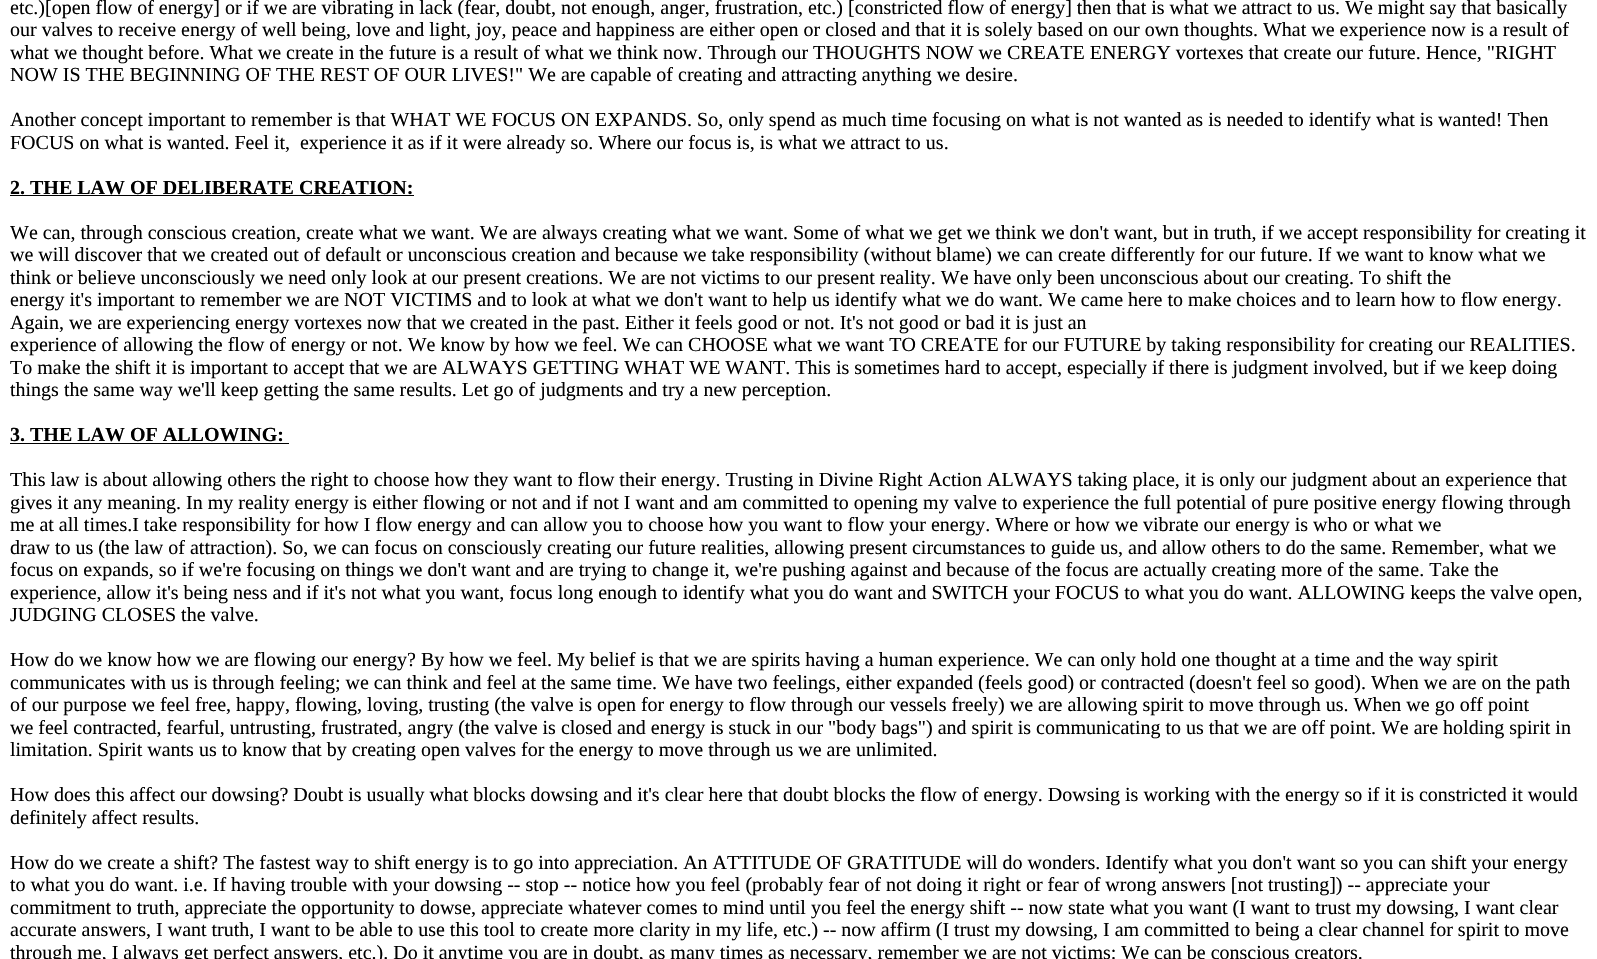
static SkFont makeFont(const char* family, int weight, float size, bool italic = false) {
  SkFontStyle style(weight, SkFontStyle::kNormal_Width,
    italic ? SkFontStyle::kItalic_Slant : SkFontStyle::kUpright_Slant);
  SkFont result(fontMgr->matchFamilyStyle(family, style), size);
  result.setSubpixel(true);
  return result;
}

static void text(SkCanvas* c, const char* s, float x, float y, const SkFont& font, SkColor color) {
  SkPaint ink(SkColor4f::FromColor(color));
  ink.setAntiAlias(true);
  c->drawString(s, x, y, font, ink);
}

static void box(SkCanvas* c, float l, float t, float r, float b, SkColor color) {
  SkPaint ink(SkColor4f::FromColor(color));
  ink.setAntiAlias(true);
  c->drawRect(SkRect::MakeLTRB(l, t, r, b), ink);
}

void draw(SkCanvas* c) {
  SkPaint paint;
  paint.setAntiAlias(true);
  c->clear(0xffffffff);
  SkFont face1 = makeFont("Liberation Serif", 400, 20);
  text(c, "etc.)[open flow of energy] or if we are vibrating in lack (fear, doubt, not enough, anger, frustration, etc.) [constricted flow of energy] then that is what we attract to us. We might say that basically", 10, 14, face1, 0xff000000);
  text(c, "our valves to receive energy of well being, love and light, joy, peace and happiness are either open or closed and that it is solely based on our own thoughts. What we experience now is a result of", 10, 36, face1, 0xff000000);
  text(c, "what we thought before. What we create in the future is a result of what we think now. Through our THOUGHTS NOW we CREATE ENERGY vortexes that create our future. Hence, \"RIGHT", 10, 59, face1, 0xff000000);
  text(c, "NOW IS THE BEGINNING OF THE REST OF OUR LIVES!\" We are capable of creating and attracting anything we desire.", 10, 81, face1, 0xff000000);
  text(c, "Another concept important to remember is that WHAT WE FOCUS ON EXPANDS. So, only spend as much time focusing on what is not wanted as is needed to identify what is wanted! Then", 10, 126, face1, 0xff000000);
  text(c, "FOCUS on what is wanted. Feel it,  experience it as if it were already so. Where our focus is, is what we attract to us.", 10, 149, face1, 0xff000000);
  SkFont face2 = makeFont("Liberation Serif", 700, 20);
  text(c, "2. THE LAW OF DELIBERATE CREATION:", 10, 194, face2, 0xff000000);
  box(c, 10, 195, 414, 196, 0xff000000);
  text(c, "We can, through conscious creation, create what we want. We are always creating what we want. Some of what we get we think we don't want, but in truth, if we accept responsibility for creating it", 10, 239, face1, 0xff000000);
  text(c, "we will discover that we created out of default or unconscious creation and because we take responsibility (without blame) we can create differently for our future. If we want to know what we", 10, 261, face1, 0xff000000);
  text(c, "think or believe unconsciously we need only look at our present creations. We are not victims to our present reality. We have only been unconscious about our creating. To shift the", 10, 284, face1, 0xff000000);
  text(c, "energy it's important to remember we are NOT VICTIMS and to look at what we don't want to help us identify what we do want. We came here to make choices and to learn how to flow energy.", 10, 306, face1, 0xff000000);
  text(c, "Again, we are experiencing energy vortexes now that we created in the past. Either it feels good or not. It's not good or bad it is just an", 10, 329, face1, 0xff000000);
  text(c, "experience of allowing the flow of energy or not. We know by how we feel. We can CHOOSE what we want TO CREATE for our FUTURE by taking responsibility for creating our REALITIES.", 10, 351, face1, 0xff000000);
  text(c, "To make the shift it is important to accept that we are ALWAYS GETTING WHAT WE WANT. This is sometimes hard to accept, especially if there is judgment involved, but if we keep doing", 10, 374, face1, 0xff000000);
  text(c, "things the same way we'll keep getting the same results. Let go of judgments and try a new perception.", 10, 396, face1, 0xff000000);
  text(c, "3. THE LAW OF ALLOWING:", 10, 441, face2, 0xff000000);
  box(c, 10, 443, 289, 444, 0xff000000);
  text(c, "This law is about allowing others the right to choose how they want to flow their energy. Trusting in Divine Right Action ALWAYS taking place, it is only our judgment about an experience that", 10, 486, face1, 0xff000000);
  text(c, "gives it any meaning. In my reality energy is either flowing or not and if not I want and am committed to opening my valve to experience the full potential of pure positive energy flowing through", 10, 509, face1, 0xff000000);
  text(c, "me at all times.I take responsibility for how I flow energy and can allow you to choose how you want to flow your energy. Where or how we vibrate our energy is who or what we", 10, 531, face1, 0xff000000);
  text(c, "draw to us (the law of attraction). So, we can focus on consciously creating our future realities, allowing present circumstances to guide us, and allow others to do the same. Remember, what we", 10, 554, face1, 0xff000000);
  text(c, "focus on expands, so if we're focusing on things we don't want and are trying to change it, we're pushing against and because of the focus are actually creating more of the same. Take the", 10, 576, face1, 0xff000000);
  text(c, "experience, allow it's being ness and if it's not what you want, focus long enough to identify what you do want and SWITCH your FOCUS to what you do want. ALLOWING keeps the valve open,", 10, 599, face1, 0xff000000);
  text(c, "JUDGING CLOSES the valve.", 10, 621, face1, 0xff000000);
  text(c, "How do we know how we are flowing our energy? By how we feel. My belief is that we are spirits having a human experience. We can only hold one thought at a time and the way spirit", 10, 666, face1, 0xff000000);
  text(c, "communicates with us is through feeling; we can think and feel at the same time. We have two feelings, either expanded (feels good) or contracted (doesn't feel so good). When we are on the path", 10, 689, face1, 0xff000000);
  text(c, "of our purpose we feel free, happy, flowing, loving, trusting (the valve is open for energy to flow through our vessels freely) we are allowing spirit to move through us. When we go off point", 10, 711, face1, 0xff000000);
  text(c, "we feel contracted, fearful, untrusting, frustrated, angry (the valve is closed and energy is stuck in our \"body bags\") and spirit is communicating to us that we are off point. We are holding spirit in", 10, 734, face1, 0xff000000);
  text(c, "limitation. Spirit wants us to know that by creating open valves for the energy to move through us we are unlimited.", 10, 756, face1, 0xff000000);
  text(c, "How does this affect our dowsing? Doubt is usually what blocks dowsing and it's clear here that doubt blocks the flow of energy. Dowsing is working with the energy so if it is constricted it would", 10, 801, face1, 0xff000000);
  text(c, "definitely affect results.", 10, 824, face1, 0xff000000);
  text(c, "How do we create a shift? The fastest way to shift energy is to go into appreciation. An ATTITUDE OF GRATITUDE will do wonders. Identify what you don't want so you can shift your energy", 10, 869, face1, 0xff000000);
  text(c, "to what you do want. i.e. If having trouble with your dowsing -- stop -- notice how you feel (probably fear of not doing it right or fear of wrong answers [not trusting]) -- appreciate your", 10, 891, face1, 0xff000000);
  text(c, "commitment to truth, appreciate the opportunity to dowse, appreciate whatever comes to mind until you feel the energy shift -- now state what you want (I want to trust my dowsing, I want clear", 10, 914, face1, 0xff000000);
  text(c, "accurate answers, I want truth, I want to be able to use this tool to create more clarity in my life, etc.) -- now affirm (I trust my dowsing, I am committed to being a clear channel for spirit to move", 10, 936, face1, 0xff000000);
  text(c, "through me, I always get perfect answers, etc.). Do it anytime you are in doubt, as many times as necessary, remember we are not victims: We can be conscious creators.", 10, 959, face1, 0xff000000);
}
